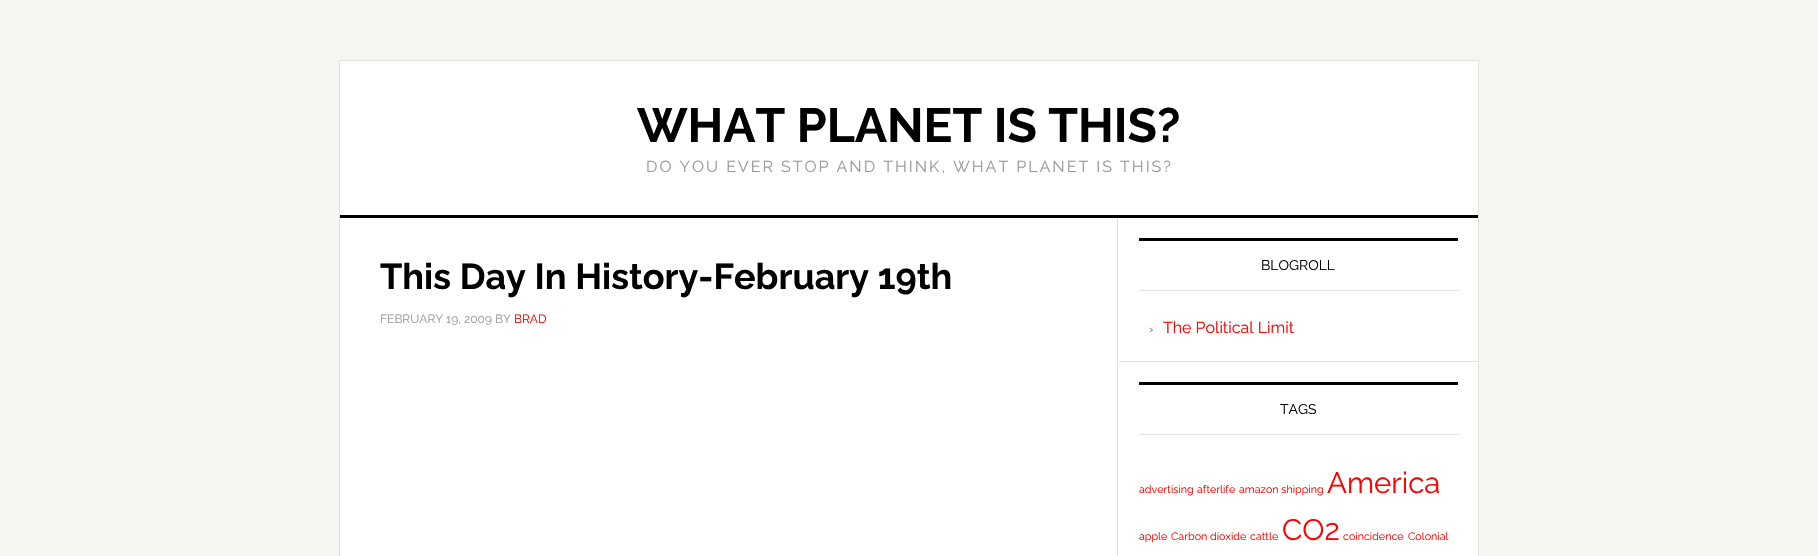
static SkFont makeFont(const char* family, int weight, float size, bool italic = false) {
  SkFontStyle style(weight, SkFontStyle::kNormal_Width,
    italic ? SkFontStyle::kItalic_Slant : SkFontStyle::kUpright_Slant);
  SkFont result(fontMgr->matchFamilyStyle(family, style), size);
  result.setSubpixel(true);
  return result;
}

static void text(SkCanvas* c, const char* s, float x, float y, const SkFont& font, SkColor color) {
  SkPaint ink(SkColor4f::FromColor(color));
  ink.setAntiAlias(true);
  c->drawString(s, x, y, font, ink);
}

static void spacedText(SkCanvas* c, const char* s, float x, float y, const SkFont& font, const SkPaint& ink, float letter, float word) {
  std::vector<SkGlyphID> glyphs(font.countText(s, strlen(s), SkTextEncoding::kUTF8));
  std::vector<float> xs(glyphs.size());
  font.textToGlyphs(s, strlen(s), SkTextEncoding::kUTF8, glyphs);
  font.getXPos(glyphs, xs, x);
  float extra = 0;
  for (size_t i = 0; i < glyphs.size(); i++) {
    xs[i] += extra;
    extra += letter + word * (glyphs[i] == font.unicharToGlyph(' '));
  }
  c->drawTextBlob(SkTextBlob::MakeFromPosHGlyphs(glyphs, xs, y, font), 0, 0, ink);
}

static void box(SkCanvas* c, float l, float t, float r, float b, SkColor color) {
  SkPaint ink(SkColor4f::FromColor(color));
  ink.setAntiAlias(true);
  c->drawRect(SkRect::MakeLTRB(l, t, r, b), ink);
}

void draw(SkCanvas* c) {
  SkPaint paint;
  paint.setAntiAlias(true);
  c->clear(0xfff6f5f2);
  paint.setColor(0xffffffff);
  c->drawRect(SkRect::MakeLTRB(339.5f, 60.5f, 1478.5f, 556.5f), paint);
  paint.setStyle(SkPaint::kStroke_Style);
  paint.setStrokeWidth(1);
  paint.setColor(0xffe3e3e3);
  c->drawRect(SkRect::MakeLTRB(339.5f, 60.5f, 1478.5f, 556.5f), paint);
  box(c, 340, 215, 1478, 218, 0xff000000);
  SkFont face1 = makeFont("Raleway", 700, 48);
  text(c, "WHAT PLANET IS THIS?", 637, 142, face1, 0xff000000);
  SkFont face2 = makeFont("Raleway", 400, 16);
  paint.setStyle(SkPaint::kFill_Style);
  paint.setColor(0xff999999);
  spacedText(c, "DO YOU EVER STOP AND THINK, WHAT PLANET IS THIS?", 646, 172, face2, paint, 2, 0);
  box(c, 1117, 218, 1118, 556, 0xffe3e3e3);
  SkFont face3 = makeFont("Raleway", 700, 36);
  text(c, "This Day In History-February 19th", 380, 289, face3, 0xff000000);
  SkFont face4 = makeFont("Raleway", 400, 12);
  text(c, "FEBRUARY 19, 2009 BY", 380, 323, face4, 0xff999999);
  text(c, "BRAD", 514, 323, face4, 0xffff0000);
  box(c, 1119, 361, 1478, 362, 0xffe3e3e3);
  box(c, 1139, 238, 1458, 241, 0xff000000);
  box(c, 1139, 290, 1458, 291, 0xffe3e3e3);
  SkFont face5 = makeFont("Raleway", 400, 14);
  text(c, "BLOGROLL", 1261, 270, face5, 0xff000000);
  text(c, "›", 1149, 333, face4, 0xff666666);
  text(c, "The Political Limit", 1163, 333, face2, 0xffff0000);
  box(c, 1139, 382, 1458, 385, 0xff000000);
  box(c, 1139, 434, 1458, 435, 0xffe3e3e3);
  text(c, "TAGS", 1280, 414, face5, 0xff000000);
  SkFont face6 = makeFont("Raleway", 400, 10.75f);
  text(c, "advertising", 1139, 493, face6, 0xffff0000);
  text(c, "afterlife", 1197, 493, face6, 0xffff0000);
  text(c, "amazon shipping", 1239, 493, face6, 0xffff0000);
  SkFont face7 = makeFont("Raleway", 400, 29.5f);
  text(c, "America", 1327, 493, face7, 0xffff0000);
  text(c, "apple", 1139, 540, face6, 0xffff0000);
  text(c, "Carbon dioxide", 1171, 540, face6, 0xffff0000);
  text(c, "cattle", 1250, 540, face6, 0xffff0000);
  text(c, "CO2", 1282, 540, face7, 0xffff0000);
  text(c, "coincidence", 1343, 540, face6, 0xffff0000);
  text(c, "Colonial", 1408, 540, face6, 0xffff0000);
}
